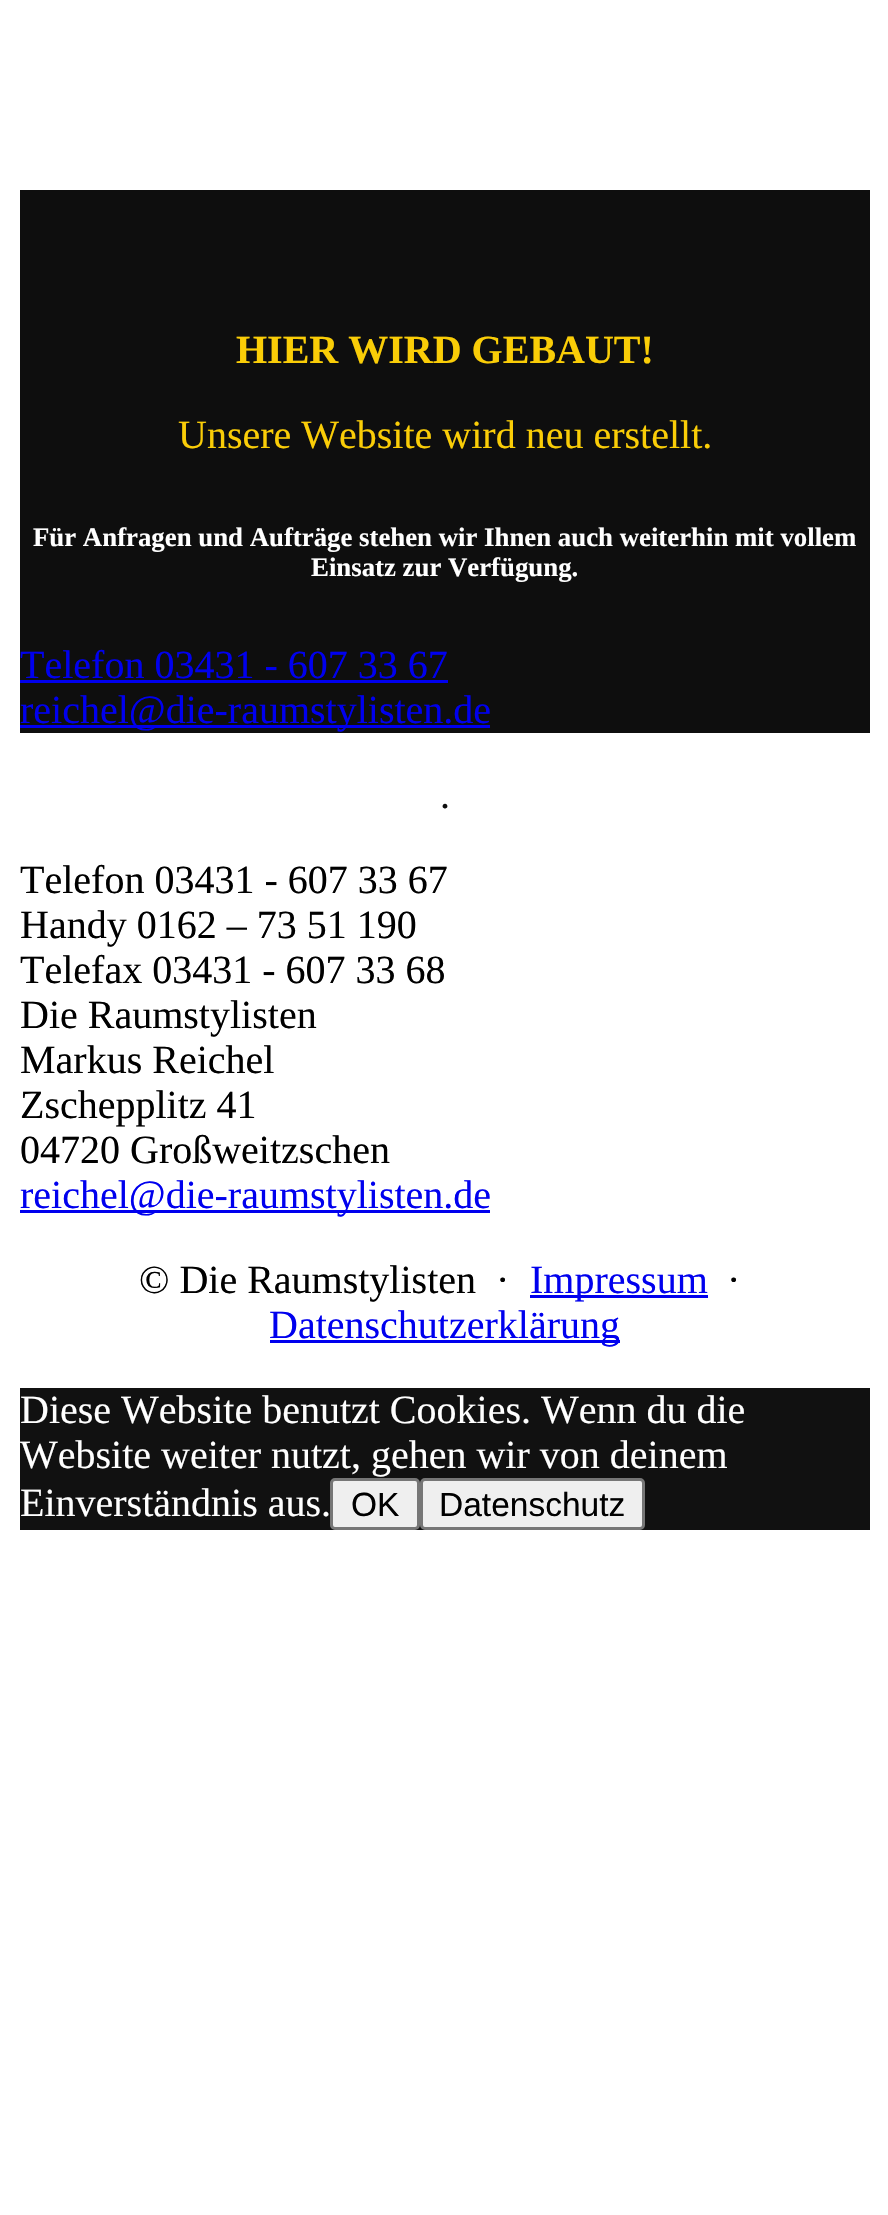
static SkFont makeFont(const char* family, int weight, float size, bool italic = false) {
  SkFontStyle style(weight, SkFontStyle::kNormal_Width,
    italic ? SkFontStyle::kItalic_Slant : SkFontStyle::kUpright_Slant);
  SkFont result(fontMgr->matchFamilyStyle(family, style), size);
  result.setSubpixel(true);
  return result;
}

static void text(SkCanvas* c, const char* s, float x, float y, const SkFont& font, SkColor color) {
  SkPaint ink(SkColor4f::FromColor(color));
  ink.setAntiAlias(true);
  c->drawString(s, x, y, font, ink);
}

static void box(SkCanvas* c, float l, float t, float r, float b, SkColor color) {
  SkPaint ink(SkColor4f::FromColor(color));
  ink.setAntiAlias(true);
  c->drawRect(SkRect::MakeLTRB(l, t, r, b), ink);
}

void draw(SkCanvas* c) {
  SkPaint paint;
  paint.setAntiAlias(true);
  c->clear(0xffffffff);
  box(c, 20, 190, 870, 733, 0xff0e0e0e);
  SkFont face1 = makeFont("Liberation Serif", 700, 40);
  text(c, "HIER WIRD GEBAUT!", 236, 363, face1, 0xfffacd07);
  SkFont face2 = makeFont("Liberation Serif", 400, 40);
  text(c, "Unsere Website wird neu erstellt.", 178, 448, face2, 0xfffacd07);
  SkFont face3 = makeFont("Liberation Serif", 700, 26.8f);
  text(c, "Für Anfragen und Aufträge stehen wir Ihnen auch weiterhin mit vollem", 33, 546, face3, 0xffffffff);
  text(c, "Einsatz zur Verfügung.", 311, 576, face3, 0xffffffff);
  text(c, "Telefon 03431 - 607 33 67", 20, 678, face2, 0xff0000ee);
  box(c, 20, 680, 448, 683, 0xff0000ee);
  box(c, 20, 725, 490, 728, 0xff0000ee);
  text(c, "reichel@die-raumstylisten.de", 20, 723, face2, 0xff0000ee);
  text(c, ".", 440, 808, face2, 0xff0e0e0e);
  text(c, "Telefon 03431 - 607 33 67", 20, 893, face2, 0xff000000);
  text(c, "Handy 0162 – 73 51 190", 20, 938, face2, 0xff000000);
  text(c, "Telefax 03431 - 607 33 68", 20, 983, face2, 0xff000000);
  text(c, "Die Raumstylisten", 20, 1028, face2, 0xff000000);
  text(c, "Markus Reichel", 20, 1073, face2, 0xff000000);
  text(c, "Zschepplitz 41", 20, 1118, face2, 0xff000000);
  text(c, "04720 Großweitzschen", 20, 1163, face2, 0xff000000);
  box(c, 20, 1210, 490, 1213, 0xff0000ee);
  text(c, "reichel@die-raumstylisten.de", 20, 1208, face2, 0xff0000ee);
  text(c, "© Die Raumstylisten  ·", 139, 1293, face2, 0xff000000);
  box(c, 530, 1295, 708, 1298, 0xff0000ee);
  text(c, "Impressum", 530, 1293, face2, 0xff0000ee);
  text(c, "·", 727, 1293, face2, 0xff000000);
  box(c, 270, 1340, 620, 1343, 0xff0000ee);
  text(c, "Datenschutzerklärung", 269, 1338, face2, 0xff0000ee);
  box(c, 20, 1388, 870, 1530, 0xff111111);
  text(c, "Diese Website benutzt Cookies. Wenn du die", 20, 1423, face2, 0xffffffff);
  text(c, "Website weiter nutzt, gehen wir von deinem", 20, 1468, face2, 0xffffffff);
  text(c, "Einverständnis aus.", 20, 1516, face2, 0xffffffff);
  paint.setColor(0xffefefef);
  c->drawRoundRect(SkRect::MakeLTRB(331.5f, 1479.5f, 418.5f, 1528.5f), 3.5f, 3.5f, paint);
  paint.setStyle(SkPaint::kStroke_Style);
  paint.setStrokeWidth(3);
  paint.setColor(0xff767676);
  c->drawRoundRect(SkRect::MakeLTRB(331.5f, 1479.5f, 418.5f, 1528.5f), 3.5f, 3.5f, paint);
  SkFont face4 = makeFont("Liberation Sans", 400, 33.5f);
  text(c, "OK", 351, 1516, face4, 0xff000000);
  paint.setStyle(SkPaint::kFill_Style);
  paint.setColor(0xffefefef);
  c->drawRoundRect(SkRect::MakeLTRB(421.5f, 1479.5f, 643.5f, 1528.5f), 3.5f, 3.5f, paint);
  paint.setStyle(SkPaint::kStroke_Style);
  paint.setColor(0xff767676);
  c->drawRoundRect(SkRect::MakeLTRB(421.5f, 1479.5f, 643.5f, 1528.5f), 3.5f, 3.5f, paint);
  text(c, "Datenschutz", 439, 1516, face4, 0xff000000);
}
